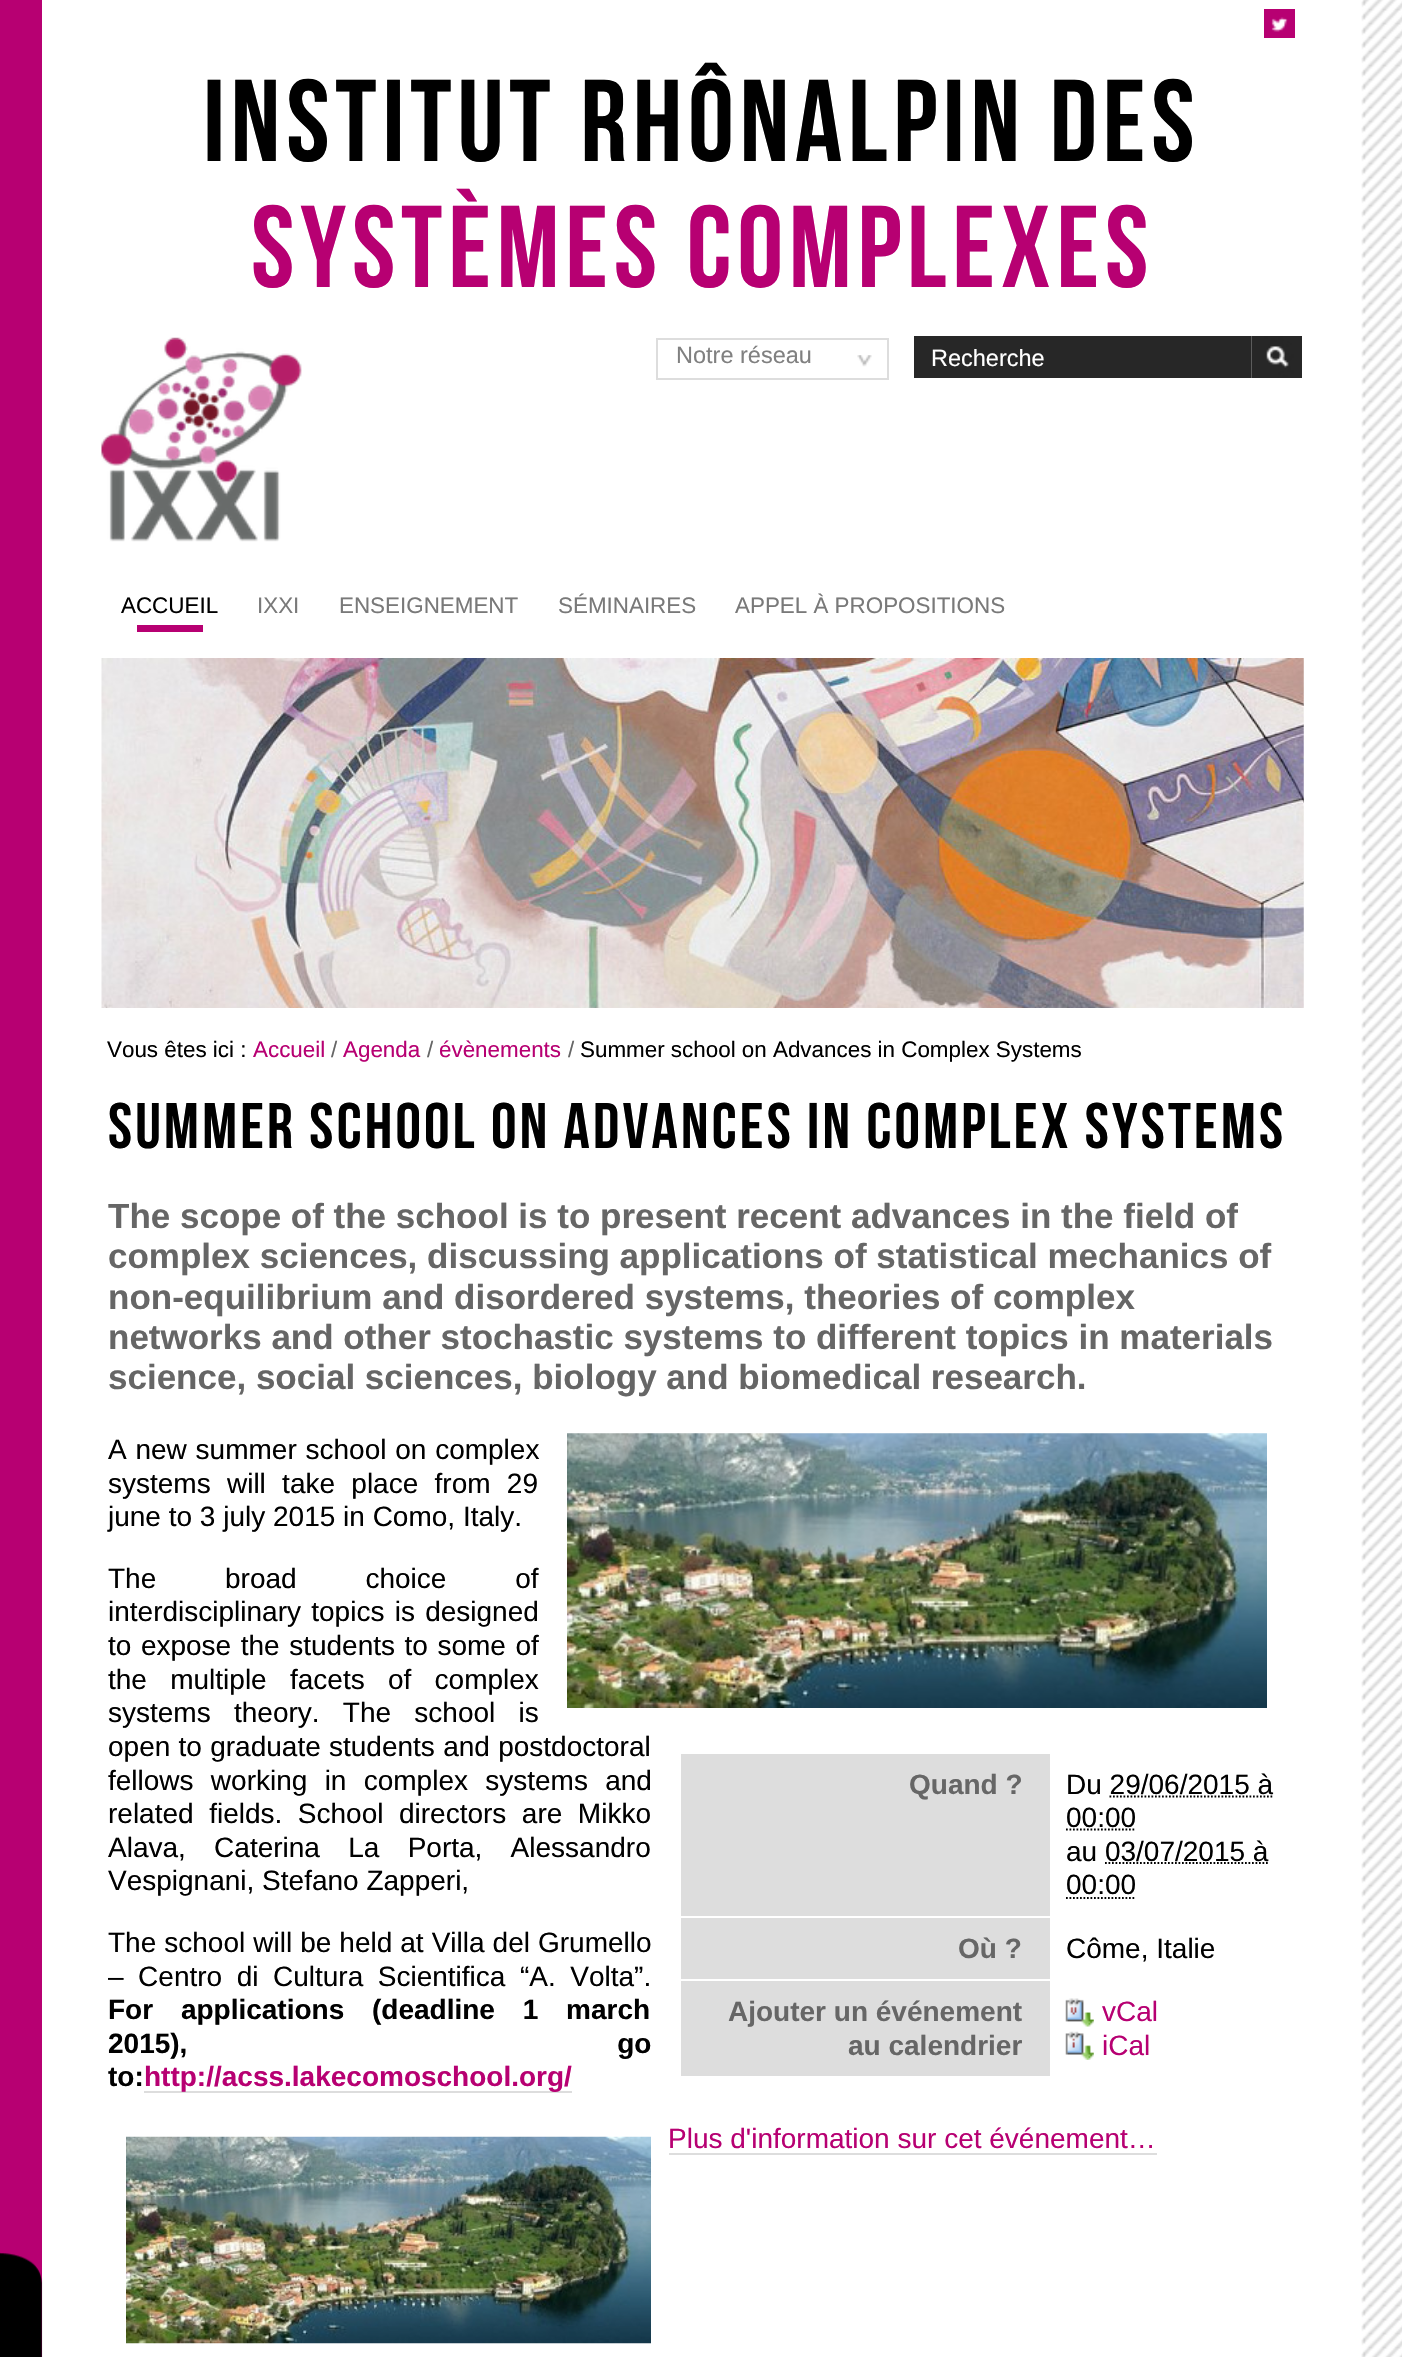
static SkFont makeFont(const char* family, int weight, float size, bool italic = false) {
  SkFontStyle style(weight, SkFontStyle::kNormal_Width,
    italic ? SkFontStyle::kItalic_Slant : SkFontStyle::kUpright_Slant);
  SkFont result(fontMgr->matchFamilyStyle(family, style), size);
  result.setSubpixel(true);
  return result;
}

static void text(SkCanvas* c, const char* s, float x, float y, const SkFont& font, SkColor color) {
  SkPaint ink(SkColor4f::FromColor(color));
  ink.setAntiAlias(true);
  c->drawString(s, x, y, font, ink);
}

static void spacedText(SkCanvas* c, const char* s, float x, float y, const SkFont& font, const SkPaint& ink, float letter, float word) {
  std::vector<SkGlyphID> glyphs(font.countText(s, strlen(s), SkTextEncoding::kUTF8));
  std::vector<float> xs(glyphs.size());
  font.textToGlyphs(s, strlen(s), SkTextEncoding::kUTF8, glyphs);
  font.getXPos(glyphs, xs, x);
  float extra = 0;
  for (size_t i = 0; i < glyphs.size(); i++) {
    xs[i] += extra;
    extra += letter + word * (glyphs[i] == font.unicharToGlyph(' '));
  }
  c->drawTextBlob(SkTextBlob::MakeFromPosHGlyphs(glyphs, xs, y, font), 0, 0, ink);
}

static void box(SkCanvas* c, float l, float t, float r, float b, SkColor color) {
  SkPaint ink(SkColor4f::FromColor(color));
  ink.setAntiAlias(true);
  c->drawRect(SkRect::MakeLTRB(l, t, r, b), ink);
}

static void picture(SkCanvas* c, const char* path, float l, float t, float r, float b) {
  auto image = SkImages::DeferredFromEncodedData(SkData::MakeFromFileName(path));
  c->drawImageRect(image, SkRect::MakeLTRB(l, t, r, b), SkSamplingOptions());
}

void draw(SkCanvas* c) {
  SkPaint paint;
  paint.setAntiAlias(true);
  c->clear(0xffffffff);
  box(c, 0, 0, 42, 2357, 0xffb70072);
  picture(c, "img_01.png", 0, 2252, 43, 2357);
  box(c, 1264, 9, 1295, 38, 0xffb70072);
  picture(c, "img_02.png", 1271, 17, 1288, 32);
  SkFont face1 = makeFont("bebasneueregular", 400, 116);
  paint.setColor(0xff000000);
  spacedText(c, "Institut rhônalpin des", 203, 161, face1, paint, 5.8f, 0);
  paint.setColor(0xffb70072);
  spacedText(c, "systèmes complexes", 251, 287, face1, paint, 5.8f, 0);
  picture(c, "img_03.png", 101, 337, 302, 542);
  picture(c, "img_04.png", 857, 355, 872, 367);
  paint.setStyle(SkPaint::kStroke_Style);
  paint.setStrokeWidth(2);
  paint.setColor(0xffdddddd);
  c->drawRect(SkRect::MakeLTRB(657, 339, 888, 379), paint);
  SkFont face2 = makeFont("Liberation Sans", 400, 23.5f);
  text(c, "Notre réseau", 676, 363, face2, 0xff808080);
  box(c, 914, 336, 1251, 378, 0xff272727);
  text(c, "Recherche", 931, 366, face2, 0xffffffff);
  picture(c, "img_05.png", 1251, 336, 1302, 378);
  SkFont face3 = makeFont("Liberation Sans", 400, 22.4f);
  text(c, "ACCUEIL", 121, 613, face3, 0xff000000);
  box(c, 137, 625, 203, 632, 0xffb70072);
  text(c, "IXXI", 257, 613, face3, 0xff797979);
  text(c, "ENSEIGNEMENT", 339, 613, face3, 0xff797979);
  text(c, "SÉMINAIRES", 558, 613, face3, 0xff797979);
  text(c, "APPEL À PROPOSITIONS", 735, 613, face3, 0xff797979);
  picture(c, "img_06.png", 101, 658, 1304, 1008);
  text(c, "Vous êtes ici :", 107, 1057, face3, 0xff000000);
  text(c, "Accueil", 253, 1057, face3, 0xffb70072);
  text(c, "/", 331, 1057, face3, 0xff666666);
  text(c, "Agenda", 343, 1057, face3, 0xffb70072);
  text(c, "/", 427, 1057, face3, 0xff666666);
  text(c, "évènements", 439, 1057, face3, 0xffb70072);
  text(c, "/", 568, 1057, face3, 0xff666666);
  text(c, "Summer school on Advances in Complex Systems", 580, 1057, face3, 0xff000000);
  SkFont face4 = makeFont("bebasneueregular", 400, 64.4f);
  paint.setStyle(SkPaint::kFill_Style);
  paint.setColor(0xff000000);
  spacedText(c, "Summer school on Advances in Complex Systems", 108, 1148, face4, paint, 3.2f, 0);
  SkFont face5 = makeFont("Liberation Sans", 700, 35);
  text(c, "The scope of the school is to present recent advances in the field of", 108, 1228, face5, 0xff666666);
  text(c, "complex sciences, discussing applications of statistical mechanics of", 108, 1268, face5, 0xff666666);
  text(c, "non-equilibrium and disordered systems, theories of complex", 108, 1309, face5, 0xff666666);
  text(c, "networks and other stochastic systems to different topics in materials", 108, 1349, face5, 0xff666666);
  text(c, "science, social sciences, biology and biomedical research.", 108, 1389, face5, 0xff666666);
  picture(c, "img_07.png", 567, 1433, 1267, 1708);
  SkFont face6 = makeFont("Liberation Sans", 400, 28);
  spacedText(c, "A new summer school on complex", 108, 1459, face6, paint, 0, 1);
  spacedText(c, "systems will take place from 29", 108, 1493, face6, paint, 0, 8.5f);
  text(c, "june to 3 july 2015 in Como, Italy.", 108, 1526, face6, 0xff000000);
  picture(c, "img_08.png", 126, 2136, 651, 2344);
  spacedText(c, "The broad choice of", 108, 1588, face6, paint, 0, 61);
  spacedText(c, "interdisciplinary topics is designed", 108, 1621, face6, paint, 0, 2.5f);
  spacedText(c, "to expose the students to some of", 108, 1655, face6, paint, 0, 1.75f);
  spacedText(c, "the multiple facets of complex", 108, 1689, face6, paint, 0, 15.5f);
  spacedText(c, "systems theory. The school is", 108, 1722, face6, paint, 0, 15.5f);
  spacedText(c, "open to graduate students and postdoctoral", 108, 1756, face6, paint, 0, 0.5f);
  spacedText(c, "fellows working in complex systems and", 108, 1790, face6, paint, 0, 9.5f);
  spacedText(c, "related fields. School directors are Mikko", 108, 1823, face6, paint, 0, 7.75f);
  spacedText(c, "Alava, Caterina La Porta, Alessandro", 108, 1857, face6, paint, 0, 20.5f);
  text(c, "Vespignani, Stefano Zapperi,", 108, 1890, face6, 0xff000000);
  spacedText(c, "The school will be held at Villa del Grumello", 108, 1952, face6, paint, 0, 0.25f);
  spacedText(c, "– Centro di Cultura Scientifica “A. Volta”.", 108, 1986, face6, paint, 0, 6.75f);
  SkFont face7 = makeFont("Liberation Sans", 700, 28);
  spacedText(c, "For applications (deadline 1 march", 108, 2019, face7, paint, 0, 20);
  spacedText(c, "2015), go", 108, 2053, face7, paint, 0, 422);
  text(c, "to:", 108, 2086, face7, 0xff000000);
  box(c, 144, 2091, 572, 2093, 0xffdddddd);
  text(c, "http://acss.lakecomoschool.org/", 144, 2086, face7, 0xffb70072);
  box(c, 681, 1754, 1050, 1916, 0xffdddddd);
  text(c, "Quand ?", 909, 1794, face7, 0xff666666);
  text(c, "Du 29/06/2015 à", 1066, 1794, face6, 0xff000000);
  text(c, "00:00", 1066, 1827, face6, 0xff000000);
  paint.setStyle(SkPaint::kStroke_Style);
  paint.setStrokeWidth(1.8f);
  paint.setPathEffect(SkDashPathEffect::Make({{1.75f, 1.75f}}, 0));
  c->drawPath(SkPathBuilder().moveTo(1109.5f, 1796.5f).lineTo(1273, 1796.5f).detach(), paint);
  paint.setPathEffect(nullptr);
  paint.setPathEffect(SkDashPathEffect::Make({{1.75f, 1.75f}}, 0));
  c->drawPath(SkPathBuilder().moveTo(1066, 1829.5f).lineTo(1136, 1829.5f).detach(), paint);
  paint.setPathEffect(nullptr);
  text(c, "au 03/07/2015 à", 1066, 1861, face6, 0xff000000);
  text(c, "00:00", 1066, 1894, face6, 0xff000000);
  paint.setPathEffect(SkDashPathEffect::Make({{1.75f, 1.75f}}, 0));
  c->drawPath(SkPathBuilder().moveTo(1105, 1863).lineTo(1268.5f, 1863).detach(), paint);
  paint.setPathEffect(nullptr);
  paint.setPathEffect(SkDashPathEffect::Make({{1.75f, 1.75f}}, 0));
  c->drawPath(SkPathBuilder().moveTo(1066, 1898).lineTo(1136, 1898).detach(), paint);
  paint.setPathEffect(nullptr);
  box(c, 681, 1918, 1050, 1979, 0xffdddddd);
  text(c, "Où ?", 958, 1958, face7, 0xff666666);
  text(c, "Côme, Italie", 1066, 1958, face6, 0xff000000);
  box(c, 681, 1981, 1050, 2076, 0xffdddddd);
  text(c, "Ajouter un événement", 728, 2021, face7, 0xff666666);
  text(c, "au calendrier", 848, 2055, face7, 0xff666666);
  picture(c, "img_09.png", 1065, 1998, 1094, 2027);
  text(c, "vCal", 1102, 2021, face6, 0xffb70072);
  picture(c, "img_10.png", 1065, 2031, 1094, 2060);
  text(c, "iCal", 1102, 2055, face6, 0xffb70072);
  text(c, "Plus d'information sur cet événement…", 668, 2148, face6, 0xffb70072);
  box(c, 669, 2153, 1157, 2155, 0xffdddddd);
  picture(c, "img_11.png", 1361, 0, 1402, 2357);
}
